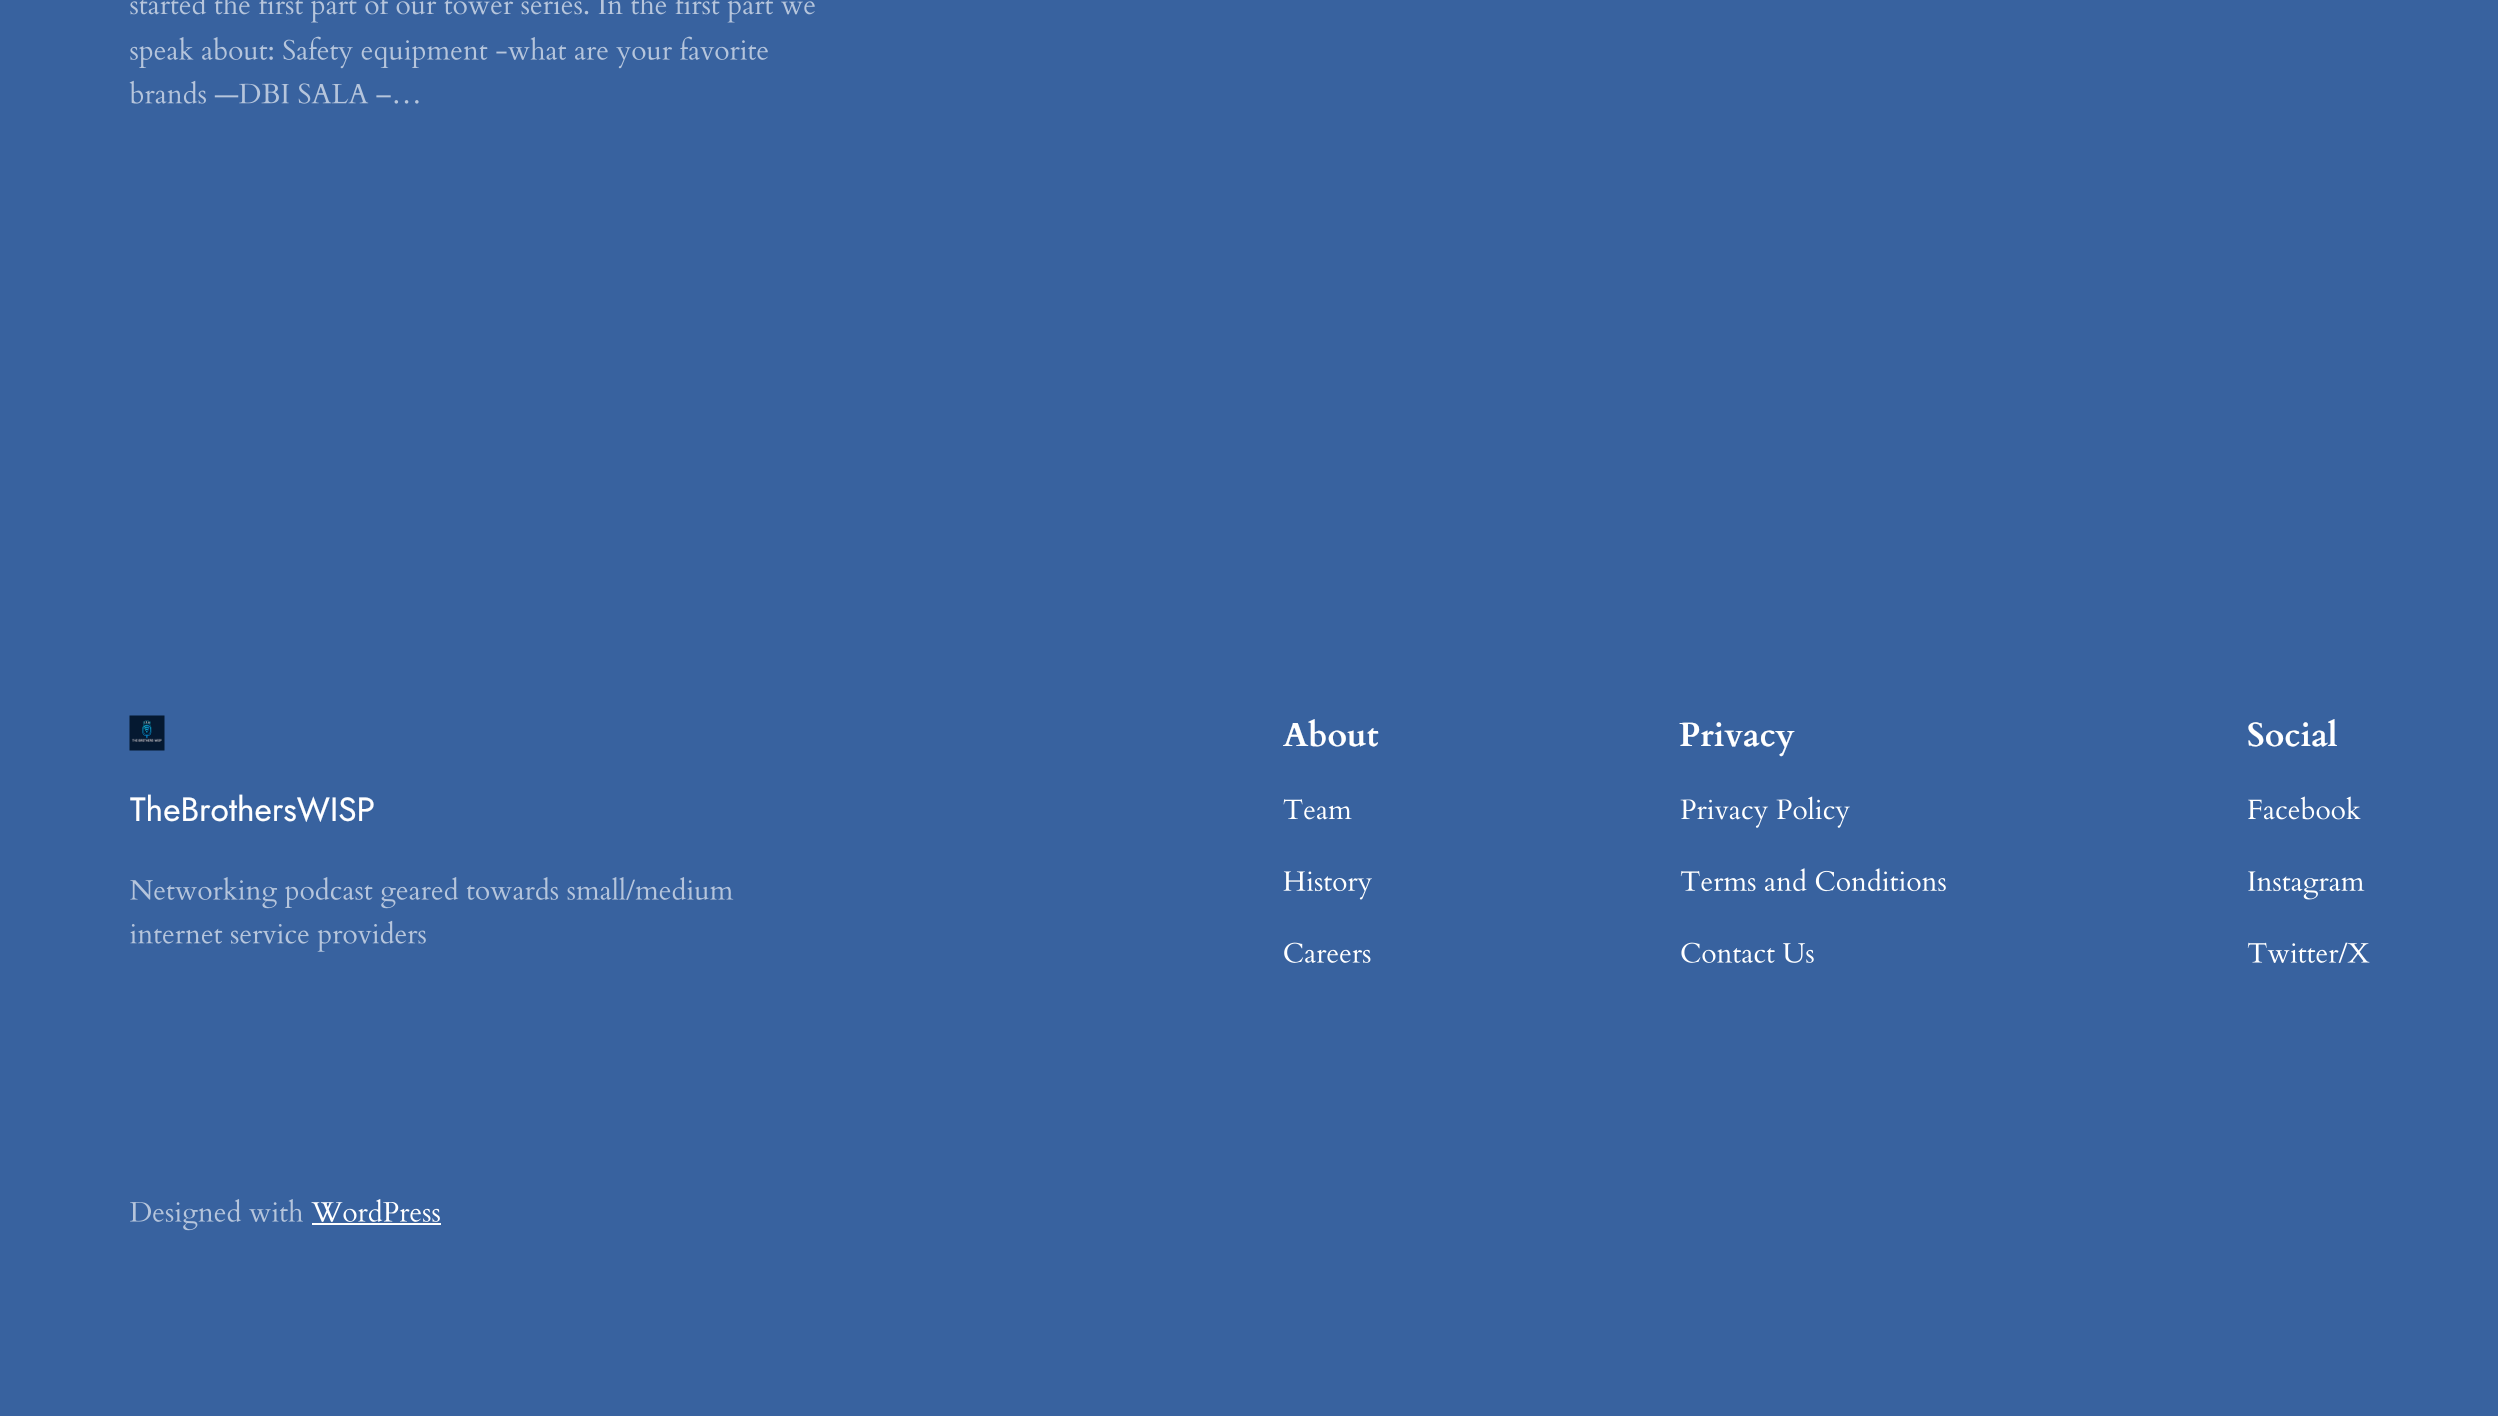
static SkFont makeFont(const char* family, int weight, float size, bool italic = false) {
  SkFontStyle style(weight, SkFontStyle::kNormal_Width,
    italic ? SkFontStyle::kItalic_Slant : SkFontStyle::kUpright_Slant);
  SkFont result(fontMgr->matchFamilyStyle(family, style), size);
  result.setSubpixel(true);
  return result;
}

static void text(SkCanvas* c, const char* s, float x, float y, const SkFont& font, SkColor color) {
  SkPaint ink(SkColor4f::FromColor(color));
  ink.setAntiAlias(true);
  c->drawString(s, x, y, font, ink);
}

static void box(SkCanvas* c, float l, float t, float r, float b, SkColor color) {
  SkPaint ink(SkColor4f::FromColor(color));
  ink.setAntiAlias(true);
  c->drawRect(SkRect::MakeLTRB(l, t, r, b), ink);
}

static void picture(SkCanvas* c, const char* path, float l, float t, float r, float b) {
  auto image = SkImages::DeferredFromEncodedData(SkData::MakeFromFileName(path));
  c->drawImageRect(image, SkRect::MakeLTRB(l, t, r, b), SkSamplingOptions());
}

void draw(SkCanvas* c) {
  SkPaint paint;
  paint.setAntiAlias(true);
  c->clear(0xff38629f);
  picture(c, "img_01.png", 130, 0, 815, 23);
  picture(c, "img_02.png", 130, 36, 768, 69);
  picture(c, "img_03.png", 129, 80, 419, 104);
  SkFont face1 = makeFont("Cardo", 700, 33.5f);
  text(c, "About", 1283, 746, face1, 0xffffffff);
  picture(c, "img_04.png", 1283, 799, 1352, 820);
  picture(c, "img_05.png", 1283, 871, 1372, 900);
  picture(c, "img_06.png", 1284, 942, 1371, 963);
  text(c, "Privacy", 1679, 746, face1, 0xffffffff);
  picture(c, "img_07.png", 1680, 796, 1850, 828);
  picture(c, "img_08.png", 1680, 868, 1946, 892);
  picture(c, "img_09.png", 1681, 942, 1814, 963);
  text(c, "Social", 2247, 746, face1, 0xffffffff);
  picture(c, "img_10.png", 2248, 796, 2361, 820);
  picture(c, "img_11.png", 2248, 871, 2365, 900);
  picture(c, "img_12.png", 2247, 942, 2370, 963);
  picture(c, "img_13.png", 129, 715, 165, 751);
  SkFont face2 = makeFont("Jost", 400, 33.5f);
  text(c, "TheBrothersWISP", 130, 821, face2, 0xffffffff);
  picture(c, "img_14.png", 130, 877, 734, 909);
  picture(c, "img_15.png", 130, 920, 426, 952);
  picture(c, "img_16.png", 130, 1199, 303, 1231);
  picture(c, "img_17.png", 311, 1199, 440, 1222);
  box(c, 312, 1223, 441, 1225, 0xffffffff);
}
